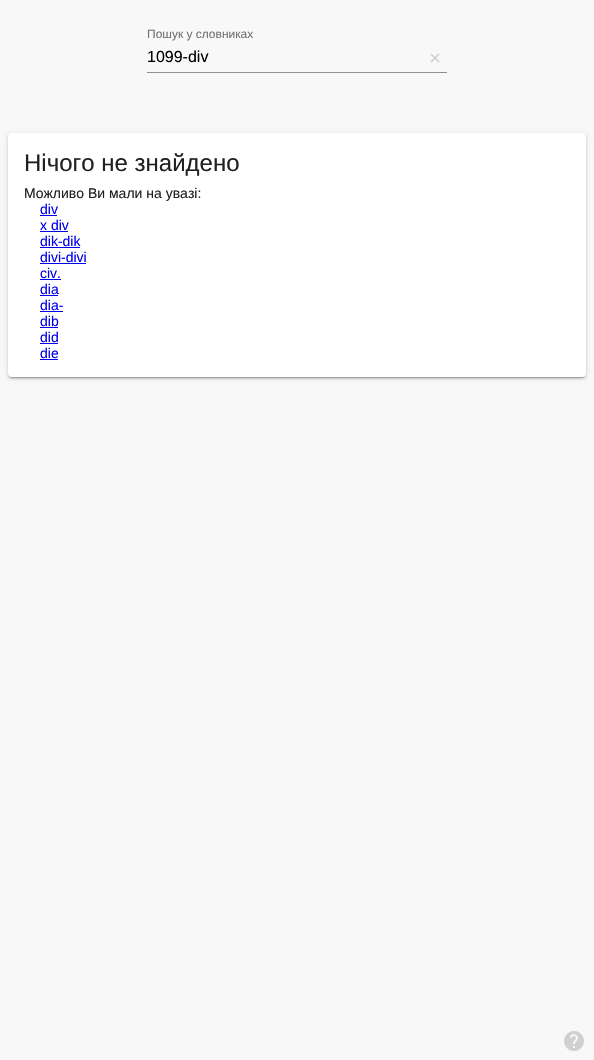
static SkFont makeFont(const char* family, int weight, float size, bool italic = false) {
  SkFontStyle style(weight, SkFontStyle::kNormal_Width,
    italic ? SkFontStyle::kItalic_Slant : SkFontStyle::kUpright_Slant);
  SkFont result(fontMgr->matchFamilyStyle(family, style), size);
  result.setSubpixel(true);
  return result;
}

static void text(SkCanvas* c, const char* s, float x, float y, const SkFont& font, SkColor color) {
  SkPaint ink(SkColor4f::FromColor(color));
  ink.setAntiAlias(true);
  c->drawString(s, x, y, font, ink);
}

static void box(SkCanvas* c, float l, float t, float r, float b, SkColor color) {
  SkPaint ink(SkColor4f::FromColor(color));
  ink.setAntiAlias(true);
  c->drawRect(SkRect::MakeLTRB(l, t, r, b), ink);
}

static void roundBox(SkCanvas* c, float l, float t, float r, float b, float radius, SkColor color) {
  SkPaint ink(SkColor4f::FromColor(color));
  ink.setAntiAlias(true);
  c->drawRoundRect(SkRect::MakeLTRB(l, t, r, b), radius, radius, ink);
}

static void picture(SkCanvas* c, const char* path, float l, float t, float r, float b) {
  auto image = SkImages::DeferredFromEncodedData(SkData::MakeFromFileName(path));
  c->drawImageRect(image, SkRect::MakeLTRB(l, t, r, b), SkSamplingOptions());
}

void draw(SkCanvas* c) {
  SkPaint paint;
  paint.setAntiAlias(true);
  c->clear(0xfff8f8f8);
  SkFont face1 = makeFont("Liberation Sans", 400, 12);
  text(c, "Пошук у словниках", 147, 38, face1, 0xff727272);
  SkFont face2 = makeFont("Liberation Sans", 400, 16);
  text(c, "1099-div", 147, 62, face2, 0xff000000);
  picture(c, "img_01.png", 430, 53, 440, 63);
  box(c, 147, 72, 447, 73, 0xff909090);
  paint.setColor(0x1f000000);
  paint.setMaskFilter(SkMaskFilter::MakeBlur(kNormal_SkBlurStyle, 2.5f));
  c->drawRoundRect(SkRect::MakeLTRB(8, 134, 586, 378), 4, 4, paint);
  paint.setMaskFilter(nullptr);
  paint.setColor(0x24000000);
  paint.setMaskFilter(SkMaskFilter::MakeBlur(kNormal_SkBlurStyle, 1));
  c->drawRoundRect(SkRect::MakeLTRB(8, 135, 586, 379), 4, 4, paint);
  paint.setMaskFilter(nullptr);
  paint.setColor(0x33000000);
  paint.setMaskFilter(SkMaskFilter::MakeBlur(kNormal_SkBlurStyle, 0.5f));
  c->drawRoundRect(SkRect::MakeLTRB(10, 138, 584, 378), 2, 2, paint);
  paint.setMaskFilter(nullptr);
  roundBox(c, 8, 133, 586, 377, 4, 0xffffffff);
  SkFont face3 = makeFont("Liberation Sans", 400, 24);
  text(c, "Нічого не знайдено", 24, 171, face3, 0xff212121);
  SkFont face4 = makeFont("Liberation Sans", 400, 14);
  text(c, "Можливо Ви мали на увазі:", 24, 198, face4, 0xff212121);
  text(c, "div", 40, 214, face4, 0xff0000ee);
  box(c, 40, 215, 57, 216, 0xff0000ee);
  text(c, "x div", 40, 230, face4, 0xff0000ee);
  box(c, 40, 231, 68, 232, 0xff0000ee);
  text(c, "dik-dik", 40, 246, face4, 0xff0000ee);
  box(c, 40, 247, 80, 248, 0xff0000ee);
  text(c, "divi-divi", 40, 262, face4, 0xff0000ee);
  box(c, 40, 263, 86, 264, 0xff0000ee);
  text(c, "civ.", 40, 278, face4, 0xff0000ee);
  box(c, 40, 279, 61, 280, 0xff0000ee);
  text(c, "dia", 40, 294, face4, 0xff0000ee);
  box(c, 40, 295, 58, 296, 0xff0000ee);
  text(c, "dia-", 40, 310, face4, 0xff0000ee);
  box(c, 40, 311, 63, 312, 0xff0000ee);
  text(c, "dib", 40, 326, face4, 0xff0000ee);
  box(c, 40, 327, 58, 328, 0xff0000ee);
  text(c, "did", 40, 342, face4, 0xff0000ee);
  box(c, 40, 343, 58, 344, 0xff0000ee);
  text(c, "die", 40, 358, face4, 0xff0000ee);
  box(c, 40, 359, 58, 360, 0xff0000ee);
  picture(c, "img_02.png", 564, 1031, 584, 1051);
}
